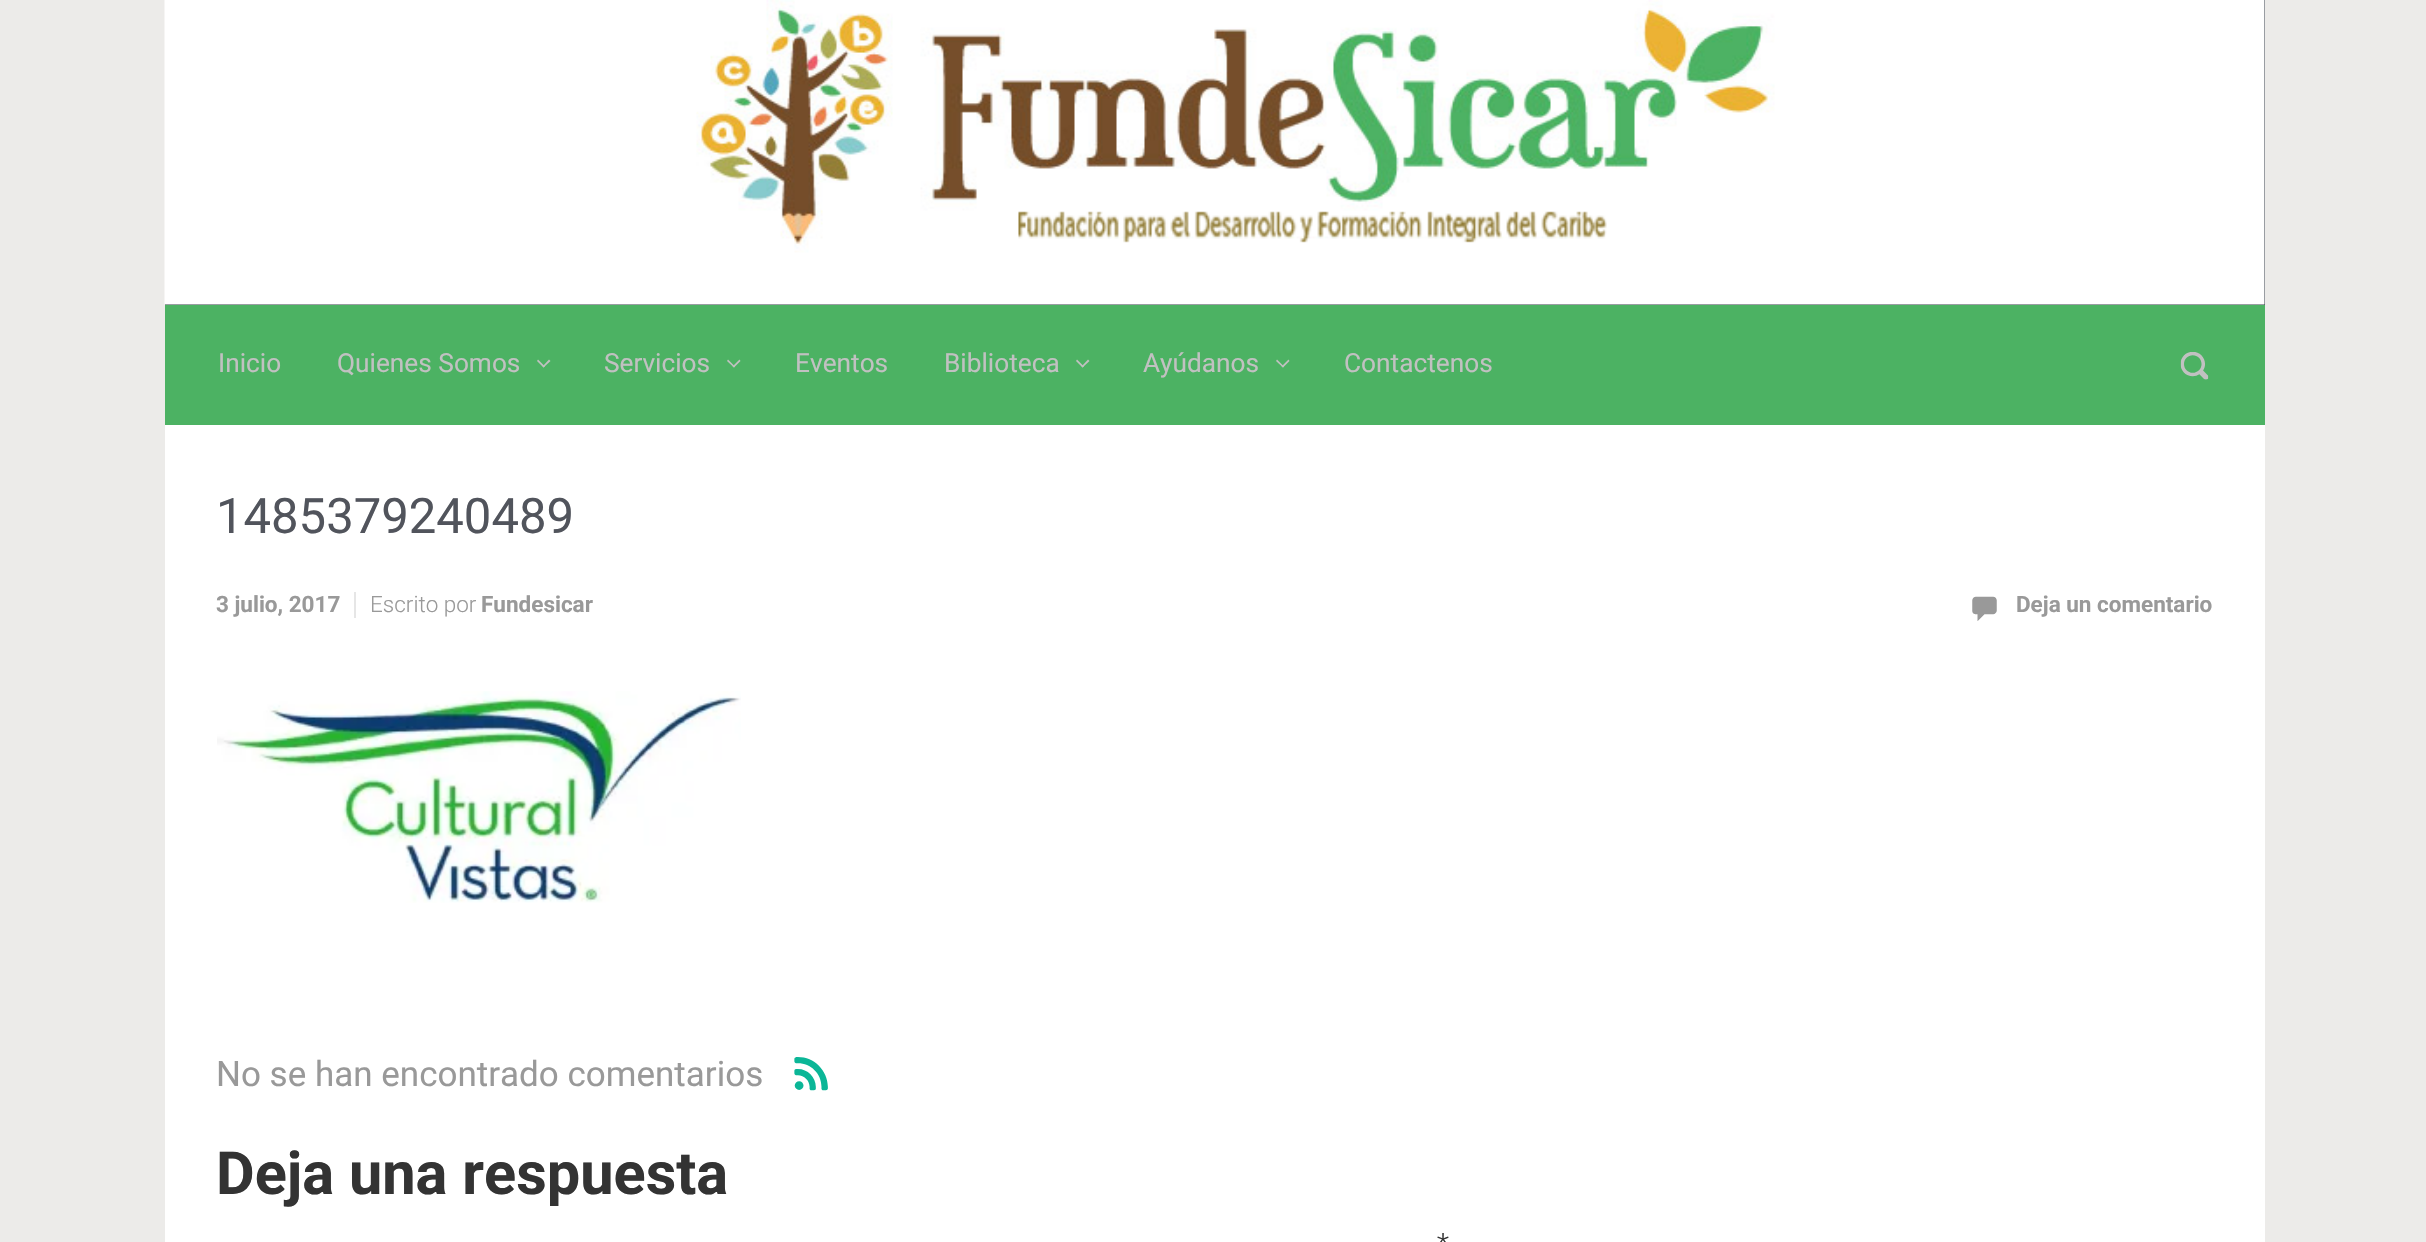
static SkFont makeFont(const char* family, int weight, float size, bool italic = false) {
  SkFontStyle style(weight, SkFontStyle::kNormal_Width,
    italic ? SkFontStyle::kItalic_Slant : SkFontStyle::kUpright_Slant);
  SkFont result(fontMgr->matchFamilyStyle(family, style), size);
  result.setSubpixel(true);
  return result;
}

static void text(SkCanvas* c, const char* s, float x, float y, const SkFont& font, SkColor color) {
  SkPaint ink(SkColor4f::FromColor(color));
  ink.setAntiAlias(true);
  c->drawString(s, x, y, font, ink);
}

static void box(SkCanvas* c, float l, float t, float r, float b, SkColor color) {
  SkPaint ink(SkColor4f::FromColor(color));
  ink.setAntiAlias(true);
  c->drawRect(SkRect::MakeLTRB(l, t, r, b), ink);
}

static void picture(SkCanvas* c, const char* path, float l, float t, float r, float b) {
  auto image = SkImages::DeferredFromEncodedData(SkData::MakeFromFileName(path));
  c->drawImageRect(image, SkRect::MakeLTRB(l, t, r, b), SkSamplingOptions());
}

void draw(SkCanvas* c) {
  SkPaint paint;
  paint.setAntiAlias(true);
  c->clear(0xffecebe9);
  box(c, 165, 0, 2265, 305, 0xff313a43);
  picture(c, "img_01.png", 164, 0, 2265, 305);
  box(c, 165, 305, 2265, 425, 0xff4cb263);
  SkFont face1 = makeFont("Roboto", 400, 26.25f);
  text(c, "Inicio", 218, 372, face1, 0xffc1c1c1);
  text(c, "Quienes Somos", 337, 372, face1, 0xffc1c1c1);
  paint.setColor(0xffc1c1c1);
  c->drawPath(SkPathBuilder().moveTo(549, 359.5f).lineTo(550.5f, 361).lineTo(543.5f, 367.5f).lineTo(542.5f, 366.5f).close().detach(), paint);
  c->drawPath(SkPathBuilder().moveTo(538, 359.5f).lineTo(545, 366.5f).lineTo(543.5f, 367.5f).lineTo(537, 361).close().detach(), paint);
  text(c, "Servicios", 604, 372, face1, 0xffc1c1c1);
  c->drawPath(SkPathBuilder().moveTo(739.5f, 359.5f).lineTo(740.5f, 361).lineTo(734, 367.5f).lineTo(732.5f, 366.5f).close().detach(), paint);
  c->drawPath(SkPathBuilder().moveTo(728, 359.5f).lineTo(735, 366.5f).lineTo(734, 367.5f).lineTo(727, 361).close().detach(), paint);
  text(c, "Eventos", 795, 372, face1, 0xffc1c1c1);
  text(c, "Biblioteca", 944, 372, face1, 0xffc1c1c1);
  c->drawPath(SkPathBuilder().moveTo(1088, 359.5f).lineTo(1089.5f, 361).lineTo(1082.5f, 367.5f).lineTo(1081.5f, 366.5f).close().detach(), paint);
  c->drawPath(SkPathBuilder().moveTo(1077, 359.5f).lineTo(1084, 366.5f).lineTo(1082.5f, 367.5f).lineTo(1076, 361).close().detach(), paint);
  text(c, "Ayúdanos", 1143, 372, face1, 0xffc1c1c1);
  c->drawPath(SkPathBuilder().moveTo(1288.5f, 359.5f).lineTo(1289.5f, 361).lineTo(1283, 367.5f).lineTo(1281.5f, 366.5f).close().detach(), paint);
  c->drawPath(SkPathBuilder().moveTo(1277, 359.5f).lineTo(1284, 366.5f).lineTo(1283, 367.5f).lineTo(1276, 361).close().detach(), paint);
  text(c, "Contactenos", 1344, 372, face1, 0xffc1c1c1);
  picture(c, "img_02.png", 2180, 352, 2209, 380);
  box(c, 165, 425, 2265, 1242, 0xffffffff);
  SkFont face2 = makeFont("Roboto", 400, 49);
  text(c, "1485379240489", 216, 533, face2, 0xff51545c);
  SkFont face3 = makeFont("Roboto", 700, 22.5f);
  text(c, "3 julio, 2017", 216, 612, face3, 0xff999999);
  box(c, 354, 592, 356, 618, 0xffe6e6e6);
  SkFont face4 = makeFont("Roboto", 300, 22.5f);
  text(c, "Escrito por", 370, 612, face4, 0xff999999);
  text(c, "Fundesicar", 481, 612, face3, 0xff999999);
  picture(c, "img_03.png", 1972, 596, 1997, 621);
  text(c, "Deja un comentario", 2016, 612, face3, 0xff999999);
  picture(c, "img_04.png", 217, 691, 741, 903);
  SkFont face5 = makeFont("Roboto", 400, 35);
  text(c, "No se han encontrado comentarios", 216, 1086, face5, 0xff999999);
  picture(c, "img_05.png", 794, 1057, 828, 1091);
  SkFont face6 = makeFont("Roboto", 700, 59.5f);
  text(c, "Deja una respuesta", 216, 1194, face6, 0xff333333);
  SkFont face7 = makeFont("Roboto", 300, 28);
  text(c, "*", 1437, 1253, face7, 0xff333333);
}
